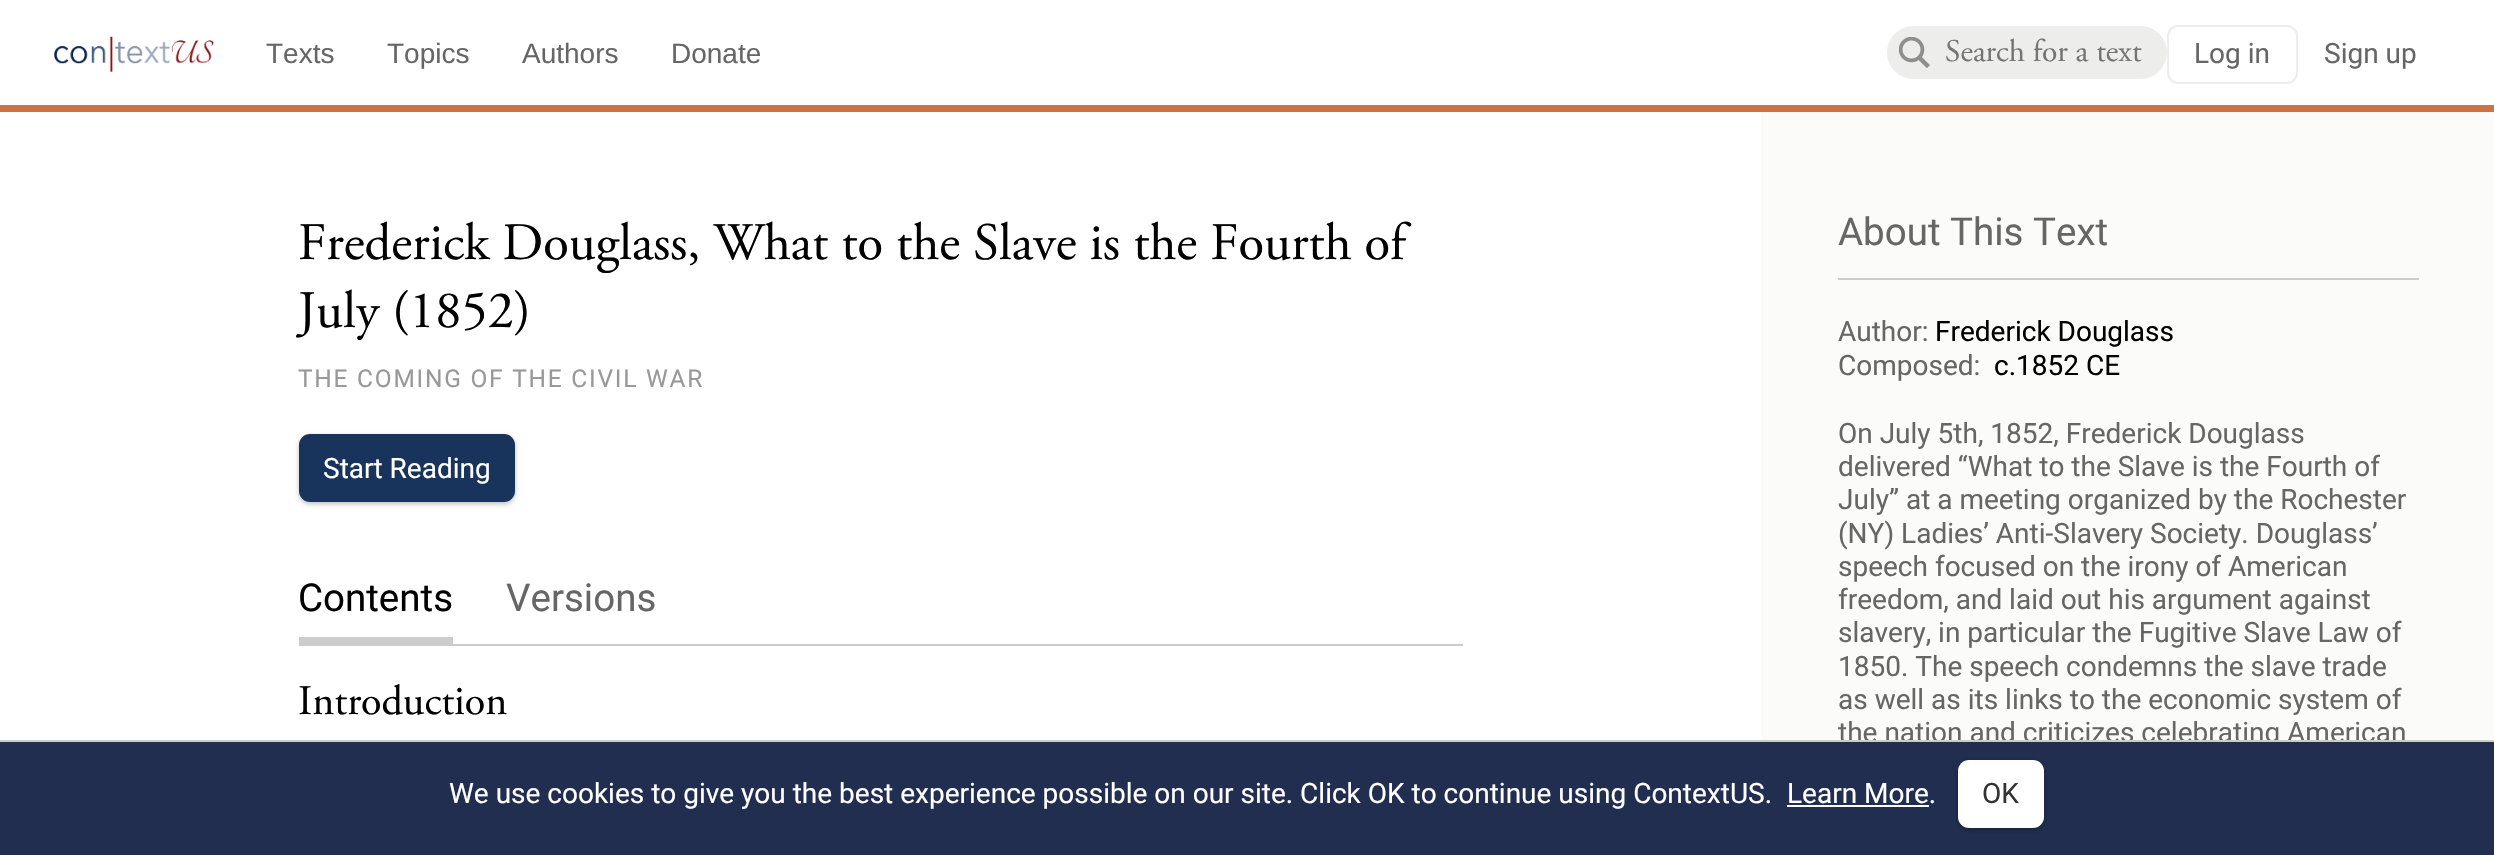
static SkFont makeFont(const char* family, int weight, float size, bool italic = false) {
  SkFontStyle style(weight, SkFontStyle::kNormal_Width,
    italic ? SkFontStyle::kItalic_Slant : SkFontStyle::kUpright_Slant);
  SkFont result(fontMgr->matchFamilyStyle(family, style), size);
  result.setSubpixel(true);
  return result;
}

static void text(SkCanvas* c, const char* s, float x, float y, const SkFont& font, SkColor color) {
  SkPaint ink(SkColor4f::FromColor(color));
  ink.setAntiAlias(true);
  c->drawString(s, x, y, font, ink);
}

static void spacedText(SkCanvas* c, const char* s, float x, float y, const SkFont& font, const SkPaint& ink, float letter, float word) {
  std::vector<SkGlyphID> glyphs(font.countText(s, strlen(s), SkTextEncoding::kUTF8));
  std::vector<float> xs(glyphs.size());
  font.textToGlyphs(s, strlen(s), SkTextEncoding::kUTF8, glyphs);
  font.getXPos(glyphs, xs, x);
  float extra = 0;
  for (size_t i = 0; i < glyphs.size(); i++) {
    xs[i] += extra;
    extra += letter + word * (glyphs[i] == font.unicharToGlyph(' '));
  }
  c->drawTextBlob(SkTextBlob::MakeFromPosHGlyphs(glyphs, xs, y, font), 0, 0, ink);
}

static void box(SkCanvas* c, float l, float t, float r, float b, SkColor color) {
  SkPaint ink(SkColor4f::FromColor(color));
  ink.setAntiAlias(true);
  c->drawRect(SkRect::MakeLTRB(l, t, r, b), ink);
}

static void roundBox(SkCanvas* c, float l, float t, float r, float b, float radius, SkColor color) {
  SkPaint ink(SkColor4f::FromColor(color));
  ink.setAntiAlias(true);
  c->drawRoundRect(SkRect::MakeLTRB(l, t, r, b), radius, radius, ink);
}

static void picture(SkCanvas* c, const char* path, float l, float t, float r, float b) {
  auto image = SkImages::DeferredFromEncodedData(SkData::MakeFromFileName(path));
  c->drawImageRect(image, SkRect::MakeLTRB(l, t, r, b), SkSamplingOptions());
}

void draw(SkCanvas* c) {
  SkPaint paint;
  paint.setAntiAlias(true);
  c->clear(0xffffffff);
  picture(c, "img_01.png", 54, 36, 214, 72);
  SkFont face1 = makeFont("Liberation Sans", 400, 28);
  text(c, "Texts", 266, 63, face1, 0xff666666);
  text(c, "Topics", 387, 63, face1, 0xff666666);
  text(c, "Authors", 522, 63, face1, 0xff666666);
  text(c, "Donate", 671, 63, face1, 0xff666666);
  roundBox(c, 1887, 26, 2167, 79, 26.5f, 0xffededec);
  picture(c, "img_02.png", 1899, 37, 1930, 68);
  SkFont face2 = makeFont("Adobe Garamond", 400, 31.5f);
  text(c, "Search for a text", 1945, 61, face2, 0xff757575);
  paint.setStyle(SkPaint::kStroke_Style);
  paint.setStrokeWidth(2);
  paint.setColor(0xffededec);
  c->drawRoundRect(SkRect::MakeLTRB(2168, 26, 2297, 83), 10, 10, paint);
  SkFont face3 = makeFont("Roboto", 400, 28);
  text(c, "Log in", 2194, 63, face3, 0xff666666);
  text(c, "Sign up", 2324, 63, face3, 0xff666666);
  box(c, 0, 105, 2494, 112, 0xffc87448);
  SkFont face4 = makeFont("Adobe Garamond", 400, 52.5f);
  text(c, "Frederick Douglass, What to the Slave is the Fourth of", 298, 259, face4, 0xff000000);
  text(c, "July (1852)", 298, 327, face4, 0xff000000);
  SkFont face5 = makeFont("Roboto", 400, 24.5f);
  paint.setStyle(SkPaint::kFill_Style);
  paint.setColor(0xff999999);
  spacedText(c, "THE COMING OF THE CIVIL WAR", 298, 387, face5, paint, 1.75f, 0);
  paint.setColor(0x40000000);
  paint.setMaskFilter(SkMaskFilter::MakeBlur(kNormal_SkBlurStyle, 2.5f));
  c->drawRoundRect(SkRect::MakeLTRB(299, 436, 515, 504), 11, 11, paint);
  paint.setMaskFilter(nullptr);
  roundBox(c, 299, 434, 515, 502, 11, 0xff18345d);
  text(c, "Start Reading", 323, 478, face3, 0xffffffff);
  box(c, 299, 644, 1463, 646, 0xffcccccc);
  box(c, 299, 637, 453, 644, 0xffcccccc);
  SkFont face6 = makeFont("Roboto", 400, 38.5f);
  text(c, "Contents", 298, 611, face6, 0xff000000);
  text(c, "Versions", 506, 611, face6, 0xff666666);
  SkFont face7 = makeFont("Adobe Garamond", 400, 42);
  text(c, "Introduction", 298, 714, face7, 0xff000000);
  box(c, 1761, 112, 2494, 740, 0xfffbfbfa);
  box(c, 1838, 278, 2419, 280, 0xffcccccc);
  text(c, "About This Text", 1838, 245, face6, 0xff666666);
  text(c, "Author:", 1838, 341, face3, 0xff666666);
  text(c, "Frederick Douglass", 1935, 341, face3, 0xff000000);
  text(c, "Composed:", 1838, 375, face3, 0xff666666);
  text(c, "c.1852 CE", 1994, 375, face3, 0xff000000);
  text(c, "On July 5th, 1852, Frederick Douglass", 1838, 443, face3, 0xff666666);
  text(c, "delivered “What to the Slave is the Fourth of", 1838, 476, face3, 0xff666666);
  text(c, "July” at a meeting organized by the Rochester", 1838, 509, face3, 0xff666666);
  text(c, "(NY) Ladies’ Anti-Slavery Society. Douglass’", 1838, 543, face3, 0xff666666);
  text(c, "speech focused on the irony of American", 1838, 576, face3, 0xff666666);
  text(c, "freedom, and laid out his argument against", 1838, 609, face3, 0xff666666);
  text(c, "slavery, in particular the Fugitive Slave Law of", 1838, 642, face3, 0xff666666);
  text(c, "1850. The speech condemns the slave trade", 1838, 676, face3, 0xff666666);
  text(c, "as well as its links to the economic system of", 1838, 709, face3, 0xff666666);
  text(c, "the nation and criticizes celebrating American", 1838, 742, face3, 0xff666666);
  box(c, 0, 742, 2494, 855, 0xff212e50);
  box(c, 0, 740, 2494, 742, 0xffcccccc);
  text(c, "We use cookies to give you the best experience possible on our site. Click OK to continue using ContextUS.", 449, 803, face3, 0xffffffff);
  text(c, "Learn More.", 1787, 803, face3, 0xffffffff);
  box(c, 1787, 805, 1929, 807, 0xffffffff);
  paint.setMaskFilter(SkMaskFilter::MakeBlur(kNormal_SkBlurStyle, 2.5f));
  c->drawRoundRect(SkRect::MakeLTRB(1958, 761, 2044, 830), 11, 11, paint);
  paint.setMaskFilter(nullptr);
  roundBox(c, 1958, 760, 2044, 828, 11, 0xffffffff);
  text(c, "OK", 1982, 803, face3, 0xff333333);
}
